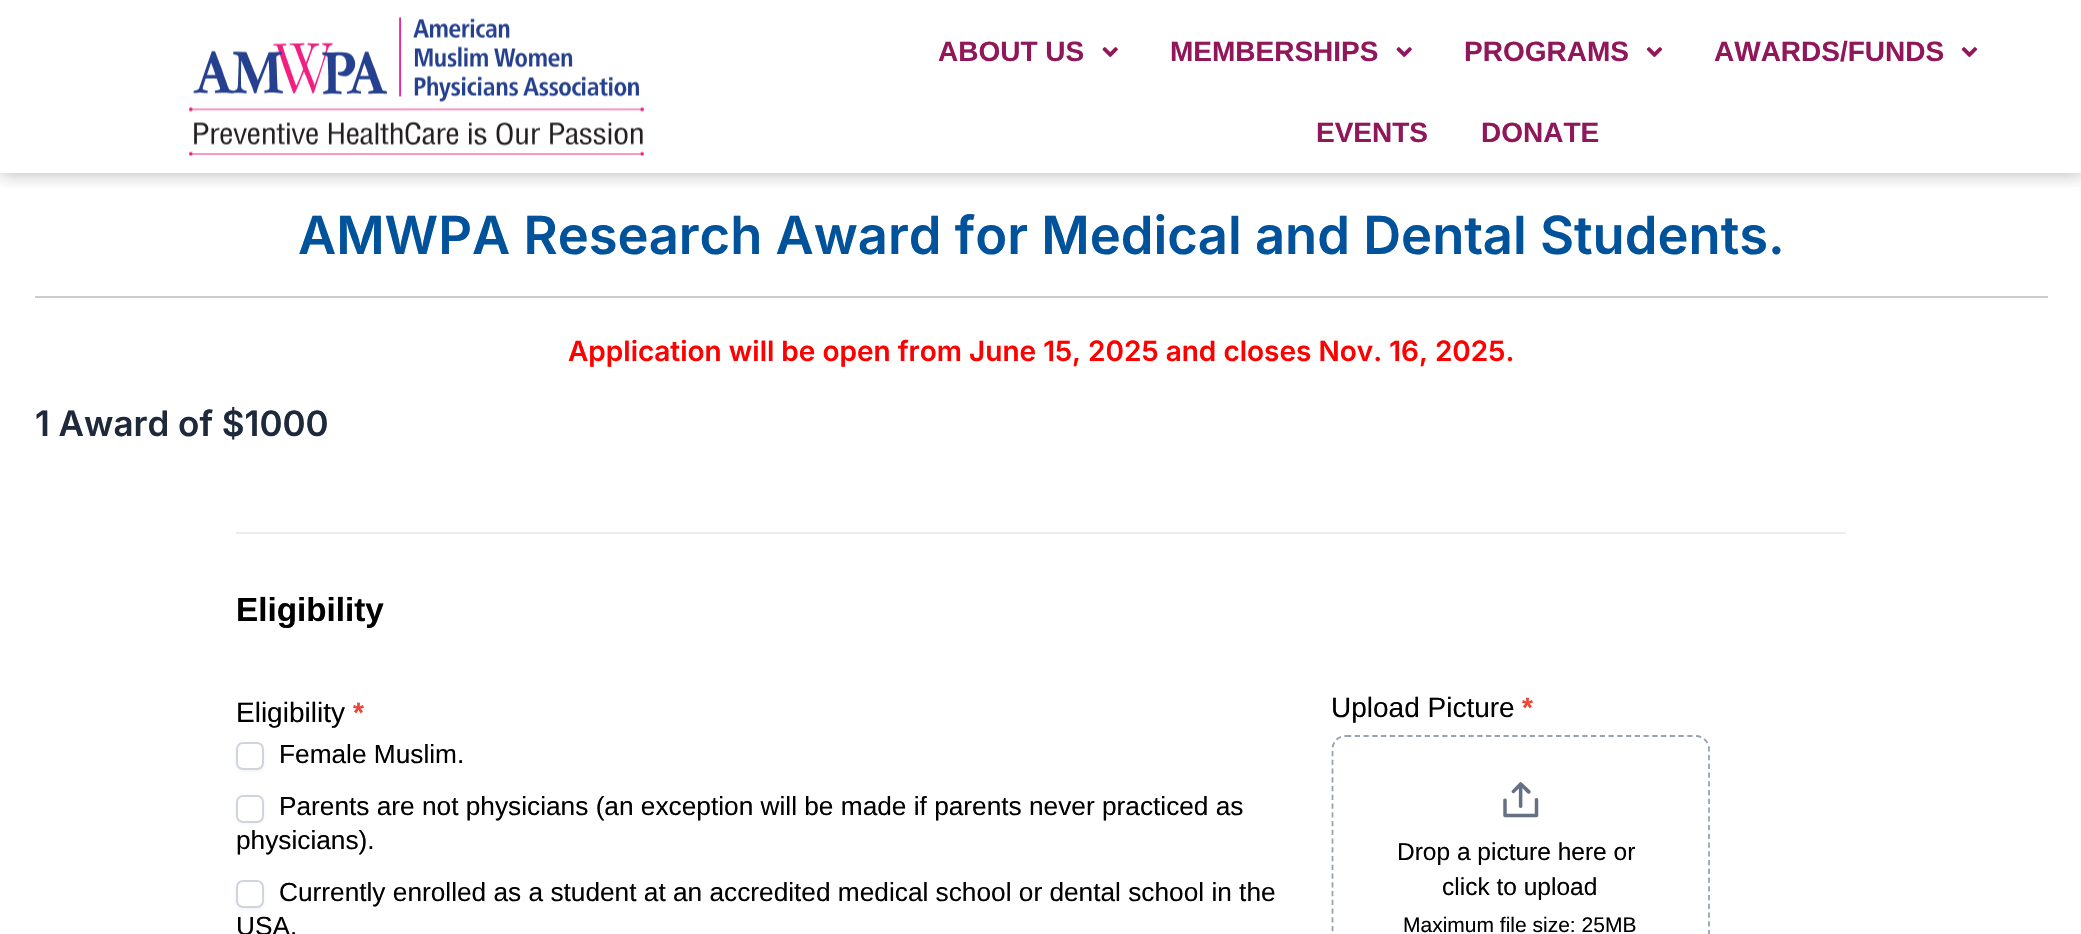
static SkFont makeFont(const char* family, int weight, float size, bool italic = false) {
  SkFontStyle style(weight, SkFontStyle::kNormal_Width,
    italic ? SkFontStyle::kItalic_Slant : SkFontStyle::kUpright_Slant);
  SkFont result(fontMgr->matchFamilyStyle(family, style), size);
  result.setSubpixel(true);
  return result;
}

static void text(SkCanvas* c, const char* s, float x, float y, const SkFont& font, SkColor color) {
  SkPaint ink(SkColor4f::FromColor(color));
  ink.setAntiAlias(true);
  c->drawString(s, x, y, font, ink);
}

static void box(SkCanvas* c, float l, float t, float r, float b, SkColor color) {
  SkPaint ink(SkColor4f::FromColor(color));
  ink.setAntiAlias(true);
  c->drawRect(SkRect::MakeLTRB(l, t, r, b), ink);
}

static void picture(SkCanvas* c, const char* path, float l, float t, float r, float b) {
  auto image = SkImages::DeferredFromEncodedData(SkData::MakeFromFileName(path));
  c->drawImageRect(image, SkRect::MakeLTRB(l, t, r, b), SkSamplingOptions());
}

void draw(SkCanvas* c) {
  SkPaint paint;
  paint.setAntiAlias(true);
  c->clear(0xffffffff);
  c->save();
  c->clipRect(SkRect::MakeLTRB(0, 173, 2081, 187));
  paint.setColor(0x4d000000);
  paint.setMaskFilter(SkMaskFilter::MakeBlur(kNormal_SkBlurStyle, 9));
  c->drawRect(SkRect::MakeLTRB(0, 0, 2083, 173), paint);
  paint.setMaskFilter(nullptr);
  c->restore();
  picture(c, "img_01.png", 189, 17, 644, 156);
  SkFont face1 = makeFont("Liberation Sans", 700, 28);
  text(c, "ABOUT US", 938, 61, face1, 0xff90175a);
  picture(c, "img_02.png", 1102, 47, 1118, 57);
  text(c, "MEMBERSHIPS", 1170, 61, face1, 0xff90175a);
  picture(c, "img_02.png", 1396, 47, 1412, 57);
  text(c, "PROGRAMS", 1464, 61, face1, 0xff90175a);
  picture(c, "img_03.png", 1646, 47, 1663, 57);
  text(c, "AWARDS/FUNDS", 1714, 61, face1, 0xff90175a);
  picture(c, "img_03.png", 1961, 47, 1978, 57);
  text(c, "EVENTS", 1316, 142, face1, 0xff90175a);
  text(c, "DONATE", 1481, 142, face1, 0xff90175a);
  box(c, 35, 296, 2048, 298, 0xffcccccc);
  SkFont face2 = makeFont("Inter", 600, 52.5f);
  text(c, "AMWPA Research Award for Medical and Dental Students.", 298, 254, face2, 0xff00529b);
  SkFont face3 = makeFont("Inter", 600, 28);
  text(c, "Application will be open from June 15, 2025 and closes Nov. 16, 2025.", 568, 361, face3, 0xffff0000);
  SkFont face4 = makeFont("Inter", 600, 35);
  text(c, "1 Award of $1000", 35, 436, face4, 0xff1e293b);
  box(c, 236, 532, 1846, 534, 0xffeaecf0);
  SkFont face5 = makeFont("Liberation Sans", 700, 33.25f);
  text(c, "Eligibility", 236, 621, face5, 0xff000000);
  SkFont face6 = makeFont("Liberation Sans", 400, 28);
  text(c, "Eligibility", 236, 722, face6, 0xff000000);
  text(c, "*", 353, 722, face1, 0xfff04438);
  paint.setColor(0x0d121217);
  paint.setMaskFilter(SkMaskFilter::MakeBlur(kNormal_SkBlurStyle, 2));
  c->drawRoundRect(SkRect::MakeLTRB(236, 744, 264, 772), 7, 7, paint);
  paint.setMaskFilter(nullptr);
  paint.setColor(0xffffffff);
  c->drawRoundRect(SkRect::MakeLTRB(237, 743, 263, 769), 6, 6, paint);
  paint.setStyle(SkPaint::kStroke_Style);
  paint.setStrokeWidth(2);
  paint.setColor(0xffd0d5dd);
  c->drawRoundRect(SkRect::MakeLTRB(237, 743, 263, 769), 6, 6, paint);
  SkFont face7 = makeFont("Liberation Sans", 400, 26.25f);
  text(c, "Female Muslim.", 279, 763, face7, 0xff000000);
  paint.setStyle(SkPaint::kFill_Style);
  paint.setColor(0x0d121217);
  paint.setMaskFilter(SkMaskFilter::MakeBlur(kNormal_SkBlurStyle, 2));
  c->drawRoundRect(SkRect::MakeLTRB(236, 796, 264, 824), 7, 7, paint);
  paint.setMaskFilter(nullptr);
  paint.setColor(0xffffffff);
  c->drawRoundRect(SkRect::MakeLTRB(237, 796, 263, 822), 6, 6, paint);
  paint.setStyle(SkPaint::kStroke_Style);
  paint.setColor(0xffd0d5dd);
  c->drawRoundRect(SkRect::MakeLTRB(237, 796, 263, 822), 6, 6, paint);
  text(c, "Parents are not physicians (an exception will be made if parents never practiced as", 279, 815, face7, 0xff000000);
  text(c, "physicians).", 236, 849, face7, 0xff000000);
  paint.setStyle(SkPaint::kFill_Style);
  paint.setColor(0x0d121217);
  paint.setMaskFilter(SkMaskFilter::MakeBlur(kNormal_SkBlurStyle, 2));
  c->drawRoundRect(SkRect::MakeLTRB(236, 882, 264, 910), 7, 7, paint);
  paint.setMaskFilter(nullptr);
  paint.setColor(0xffffffff);
  c->drawRoundRect(SkRect::MakeLTRB(237, 881, 263, 907), 6, 6, paint);
  paint.setStyle(SkPaint::kStroke_Style);
  paint.setColor(0xffd0d5dd);
  c->drawRoundRect(SkRect::MakeLTRB(237, 881, 263, 907), 6, 6, paint);
  text(c, "Currently enrolled as a student at an accredited medical school or dental school in the", 279, 901, face7, 0xff000000);
  text(c, "USA.", 236, 935, face7, 0xff000000);
  text(c, "Upload Picture", 1331, 717, face6, 0xff000000);
  text(c, "*", 1522, 717, face1, 0xfff04438);
  paint.setStrokeWidth(1.8f);
  paint.setColor(0xff98a2b3);
  paint.setPathEffect(SkDashPathEffect::Make({{5.25f, 3.5f}}, 0));
  c->drawPath(SkPathBuilder().moveTo(1346, 736).lineTo(1696, 736).cubicTo(1703, 736, 1709, 742, 1709, 749).lineTo(1709, 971).cubicTo(1709, 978.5f, 1703, 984.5f, 1696, 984.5f).lineTo(1346, 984.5f).cubicTo(1338.5f, 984.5f, 1332.5f, 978.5f, 1332.5f, 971).lineTo(1332.5f, 749).cubicTo(1332.5f, 742, 1338.5f, 736, 1346, 736).close().detach(), paint);
  paint.setPathEffect(nullptr);
  picture(c, "img_04.png", 1503, 782, 1539, 818);
  SkFont face8 = makeFont("Liberation Sans", 400, 24.5f);
  text(c, "Drop a picture here or", 1397, 860, face8, 0xff000000);
  text(c, "click to upload", 1442, 895, face8, 0xff000000);
  SkFont face9 = makeFont("Liberation Sans", 400, 21);
  text(c, "Maximum file size: 25MB", 1403, 932, face9, 0xff000000);
}
